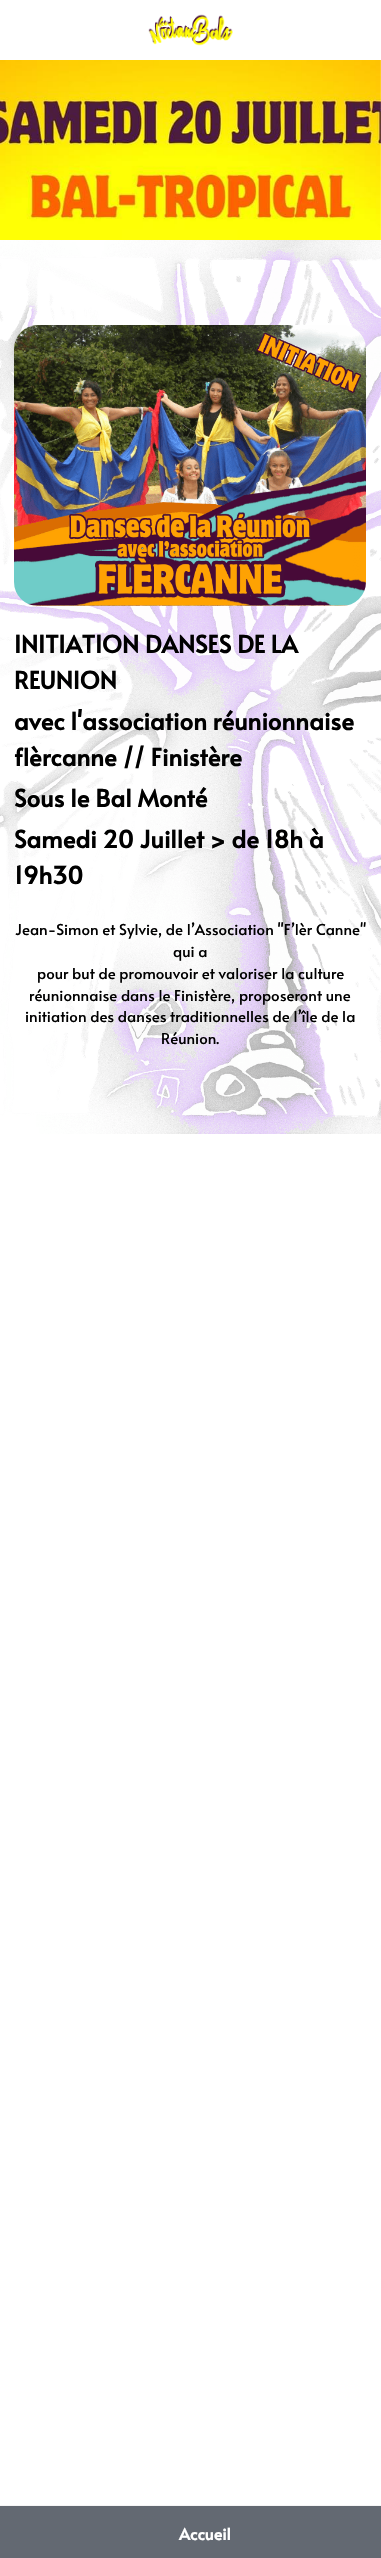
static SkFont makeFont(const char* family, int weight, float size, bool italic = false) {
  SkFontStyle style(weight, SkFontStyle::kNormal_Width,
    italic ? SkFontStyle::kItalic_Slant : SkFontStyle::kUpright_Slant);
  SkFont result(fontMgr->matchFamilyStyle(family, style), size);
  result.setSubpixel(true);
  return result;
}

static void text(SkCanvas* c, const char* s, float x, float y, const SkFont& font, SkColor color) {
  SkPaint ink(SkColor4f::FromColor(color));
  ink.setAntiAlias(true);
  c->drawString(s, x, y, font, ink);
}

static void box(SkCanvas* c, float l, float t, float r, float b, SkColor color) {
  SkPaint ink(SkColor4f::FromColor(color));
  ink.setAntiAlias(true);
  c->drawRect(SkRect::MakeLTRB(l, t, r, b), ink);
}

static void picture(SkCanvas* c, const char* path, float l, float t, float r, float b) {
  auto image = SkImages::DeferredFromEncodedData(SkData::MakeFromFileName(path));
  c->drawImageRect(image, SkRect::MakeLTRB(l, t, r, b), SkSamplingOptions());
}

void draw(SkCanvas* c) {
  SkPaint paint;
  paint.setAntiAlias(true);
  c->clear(0xffffffff);
  picture(c, "img_01.png", 148, 14, 233, 46);
  picture(c, "img_02.png", 0, 60, 381, 240);
  picture(c, "img_03.png", 0, 240, 381, 1134);
  picture(c, "img_04.png", 14, 325, 366, 606);
  SkFont face1 = makeFont("Alata", 700, 24);
  text(c, "INITIATION DANSES DE LA", 14, 653, face1, 0xff000000);
  text(c, "REUNION", 14, 689, face1, 0xff000000);
  text(c, "avec l'association réunionnaise", 14, 730, face1, 0xff000000);
  text(c, "flèrcanne // Finistère", 14, 766, face1, 0xff000000);
  text(c, "Sous le Bal Monté", 14, 807, face1, 0xff000000);
  text(c, "Samedi 20 Juillet > de 18h à", 14, 848, face1, 0xff000000);
  text(c, "19h30", 14, 884, face1, 0xff000000);
  SkFont face2 = makeFont("Alata", 400, 15);
  text(c, "Jean-Simon et Sylvie, de l’Association \"F’lèr Canne\"", 15, 935, face2, 0xff000000);
  text(c, "qui a", 173, 957, face2, 0xff000000);
  text(c, "pour but de promouvoir et valoriser la culture", 37, 979, face2, 0xff000000);
  text(c, "réunionnaise dans le Finistère, proposeront une", 29, 1001, face2, 0xff000000);
  text(c, "initiation des danses traditionnelles de l’île de la", 25, 1022, face2, 0xff000000);
  text(c, "Réunion.", 161, 1044, face2, 0xff000000);
  paint.setColor(0x38000000);
  paint.setMaskFilter(SkMaskFilter::MakeBlur(kNormal_SkBlurStyle, 0.5f));
  c->drawRect(SkRect::MakeLTRB(0, 2506, 381, 2558), paint);
  paint.setMaskFilter(nullptr);
  box(c, 0, 2506, 381, 2558, 0xff636972);
  SkFont face3 = makeFont("Alata", 700, 16);
  text(c, "Accueil", 179, 2540, face3, 0xffffffff);
}
